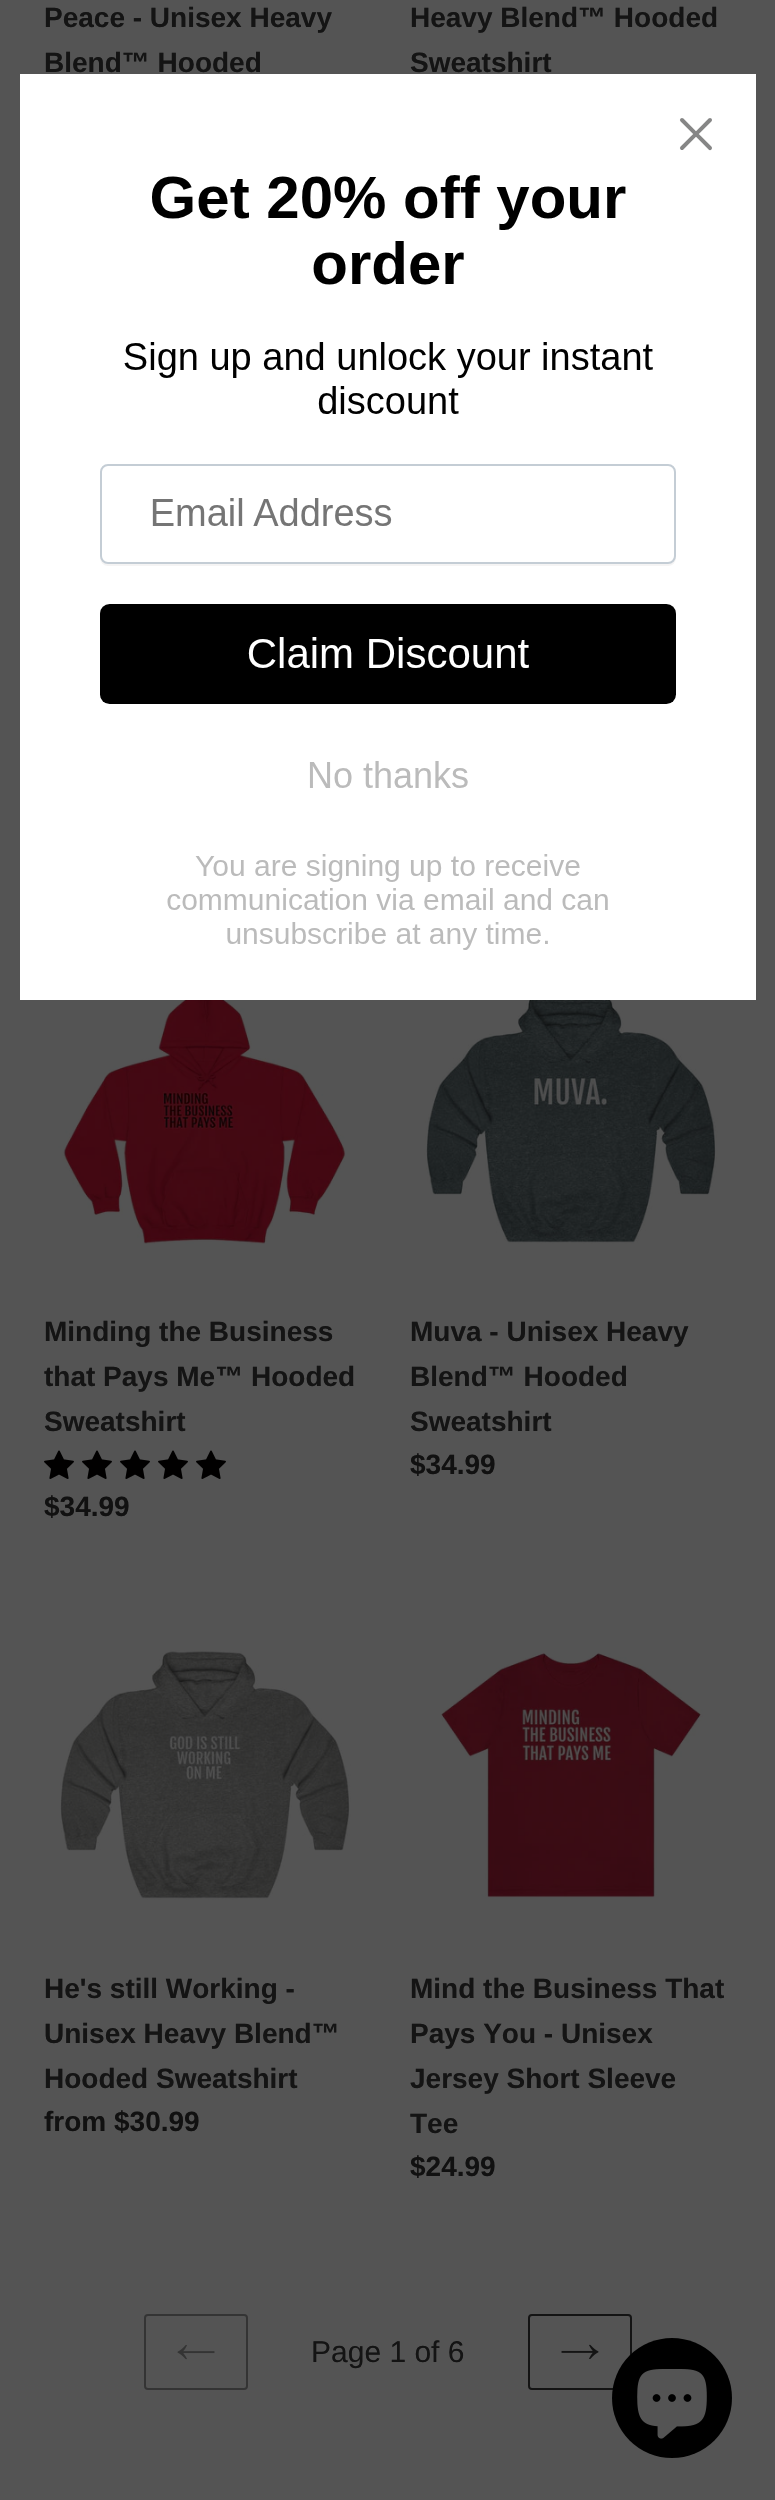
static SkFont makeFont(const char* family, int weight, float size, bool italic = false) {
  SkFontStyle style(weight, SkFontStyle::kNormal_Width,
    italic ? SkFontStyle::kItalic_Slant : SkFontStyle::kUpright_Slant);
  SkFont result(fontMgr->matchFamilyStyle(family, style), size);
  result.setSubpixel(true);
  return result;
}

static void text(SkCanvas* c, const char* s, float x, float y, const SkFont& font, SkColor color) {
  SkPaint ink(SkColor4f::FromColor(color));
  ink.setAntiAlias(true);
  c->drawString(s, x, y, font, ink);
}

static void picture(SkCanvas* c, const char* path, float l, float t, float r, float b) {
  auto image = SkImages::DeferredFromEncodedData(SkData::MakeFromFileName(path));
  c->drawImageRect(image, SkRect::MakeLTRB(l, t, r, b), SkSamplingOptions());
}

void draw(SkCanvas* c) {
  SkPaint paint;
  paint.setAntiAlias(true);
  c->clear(0xffffffff);
  SkFont face1 = makeFont("Liberation Sans", 700, 28);
  text(c, "Peace - Unisex Heavy", 44, 27, face1, 0xff3a3a3a);
  text(c, "Blend™ Hooded", 44, 72, face1, 0xff3a3a3a);
  text(c, "Heavy Blend™ Hooded", 410, 27, face1, 0xff3a3a3a);
  text(c, "Sweatshirt", 410, 72, face1, 0xff3a3a3a);
  picture(c, "img_02.png", 58, 1000, 346, 1244);
  text(c, "Minding the Business", 44, 1341, face1, 0xff3a3a3a);
  text(c, "that Pays Me™ Hooded", 44, 1386, face1, 0xff3a3a3a);
  text(c, "Sweatshirt", 44, 1431, face1, 0xff3a3a3a);
  picture(c, "img_03.png", 44, 1450, 74, 1479);
  picture(c, "img_03.png", 82, 1450, 112, 1479);
  picture(c, "img_03.png", 120, 1450, 150, 1479);
  picture(c, "img_03.png", 158, 1450, 188, 1479);
  picture(c, "img_03.png", 196, 1450, 226, 1479);
  text(c, "$34.99", 44, 1516, face1, 0xff333232);
  picture(c, "img_04.png", 424, 1000, 718, 1244);
  text(c, "Muva - Unisex Heavy", 410, 1341, face1, 0xff3a3a3a);
  text(c, "Blend™ Hooded", 410, 1386, face1, 0xff3a3a3a);
  text(c, "Sweatshirt", 410, 1431, face1, 0xff3a3a3a);
  text(c, "$34.99", 410, 1474, face1, 0xff333232);
  picture(c, "img_05.png", 60, 1650, 351, 1900);
  text(c, "He's still Working -", 44, 1998, face1, 0xff3a3a3a);
  text(c, "Unisex Heavy Blend™", 44, 2043, face1, 0xff3a3a3a);
  text(c, "Hooded Sweatshirt", 44, 2088, face1, 0xff3a3a3a);
  text(c, "from $30.99", 44, 2131, face1, 0xff333232);
  picture(c, "img_06.png", 441, 1652, 703, 1899);
  text(c, "Mind the Business That", 410, 1998, face1, 0xff3a3a3a);
  text(c, "Pays You - Unisex", 410, 2043, face1, 0xff3a3a3a);
  text(c, "Jersey Short Sleeve", 410, 2088, face1, 0xff3a3a3a);
  text(c, "Tee", 410, 2133, face1, 0xff3a3a3a);
  text(c, "$24.99", 410, 2176, face1, 0xff333232);
  paint.setStyle(SkPaint::kStroke_Style);
  paint.setStrokeWidth(2);
  paint.setColor(0xff9d9d9d);
  c->drawRoundRect(SkRect::MakeLTRB(145, 2315, 247, 2389), 3, 3, paint);
  picture(c, "img_07.png", 177, 2345, 215, 2360);
  SkFont face2 = makeFont("Liberation Sans", 400, 30);
  text(c, "Page 1 of 6", 311, 2362, face2, 0xff3a3a3a);
  paint.setColor(0xff3a3a3a);
  c->drawRoundRect(SkRect::MakeLTRB(529, 2315, 631, 2389), 3, 3, paint);
  picture(c, "img_08.png", 561, 2344, 599, 2359);
  paint.setStyle(SkPaint::kFill_Style);
  paint.setColor(0xff000000);
  c->drawCircle(672, 2398, 60, paint);
  picture(c, "img_09.png", 637, 2369, 707, 2439);
  picture(c, "img_01.png", 0, 0, 775, 2500);
}
